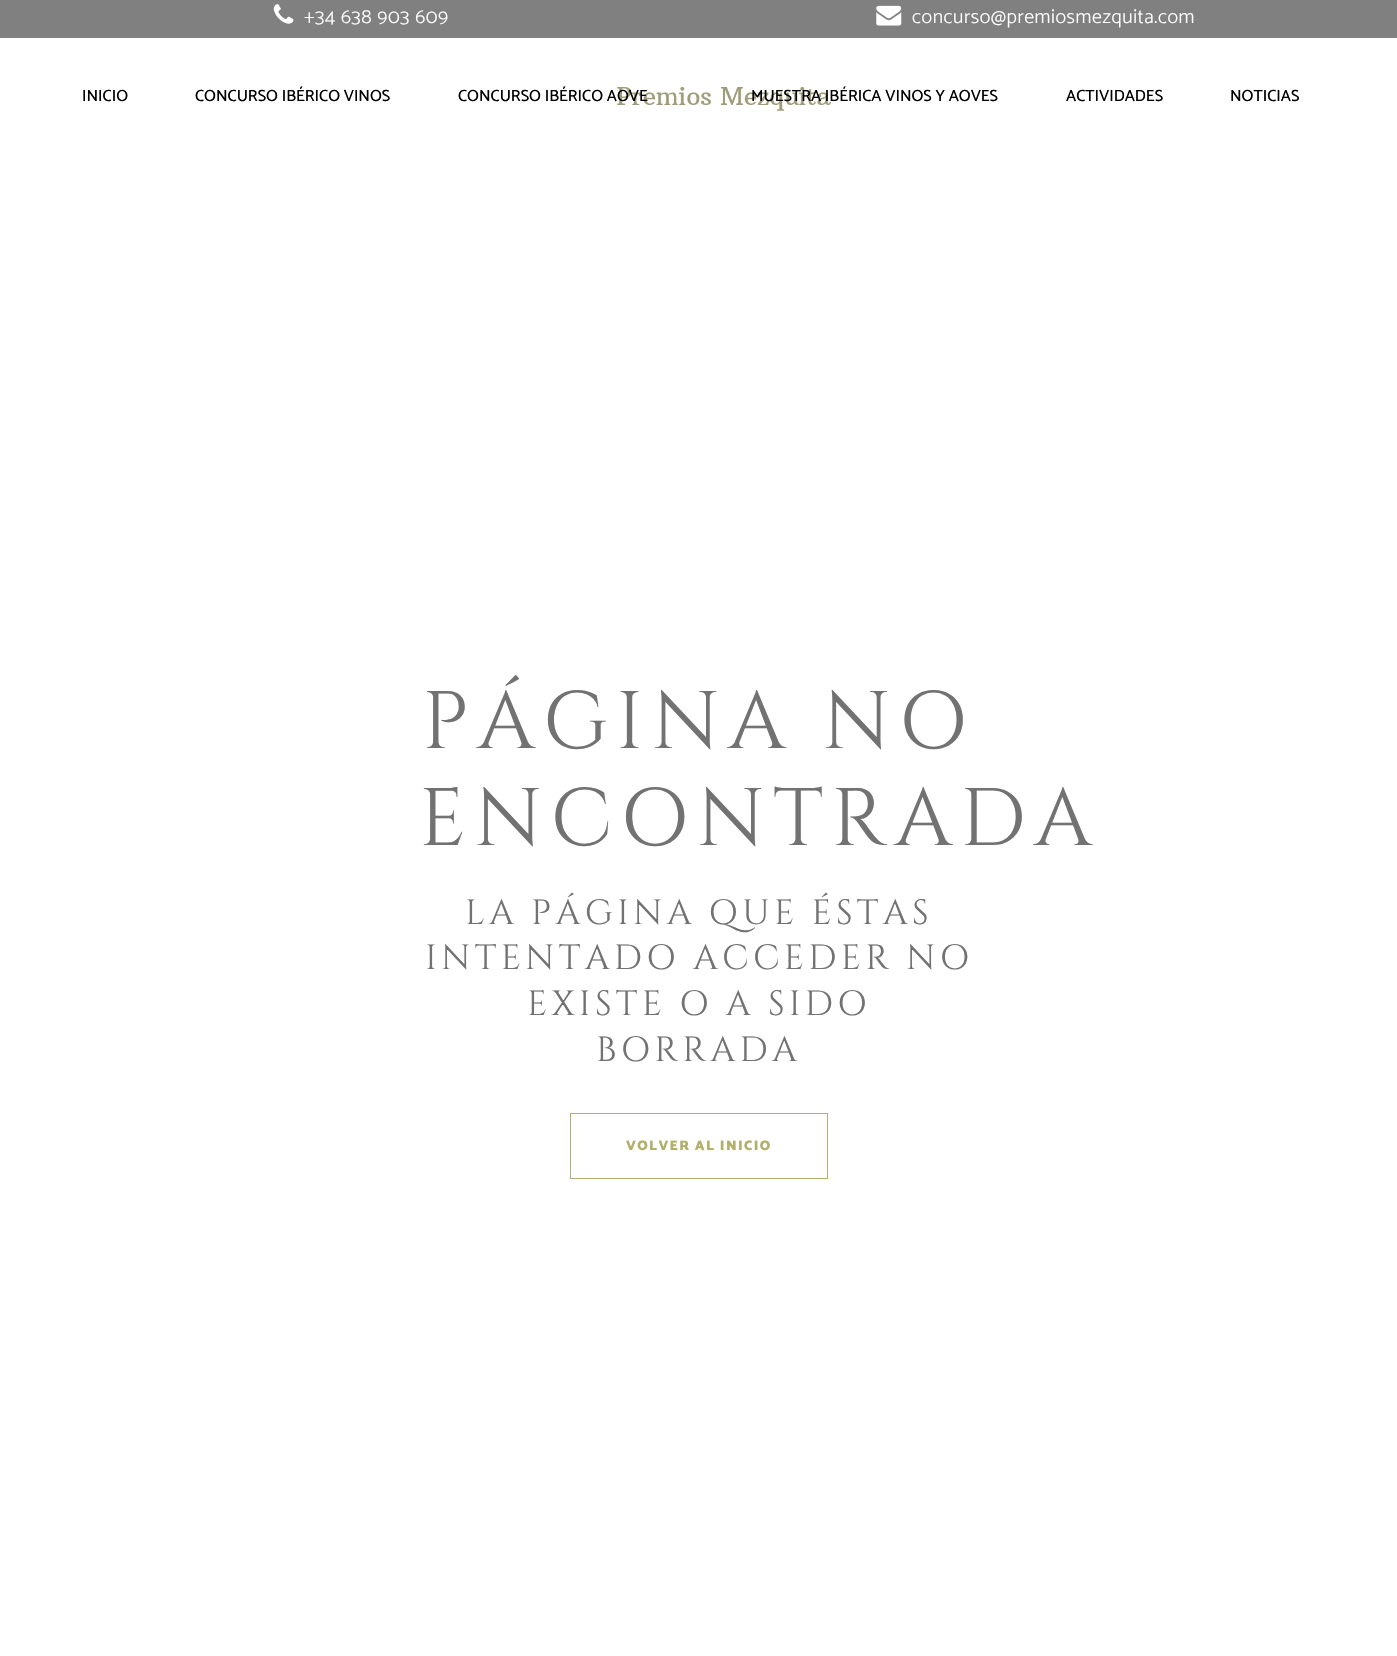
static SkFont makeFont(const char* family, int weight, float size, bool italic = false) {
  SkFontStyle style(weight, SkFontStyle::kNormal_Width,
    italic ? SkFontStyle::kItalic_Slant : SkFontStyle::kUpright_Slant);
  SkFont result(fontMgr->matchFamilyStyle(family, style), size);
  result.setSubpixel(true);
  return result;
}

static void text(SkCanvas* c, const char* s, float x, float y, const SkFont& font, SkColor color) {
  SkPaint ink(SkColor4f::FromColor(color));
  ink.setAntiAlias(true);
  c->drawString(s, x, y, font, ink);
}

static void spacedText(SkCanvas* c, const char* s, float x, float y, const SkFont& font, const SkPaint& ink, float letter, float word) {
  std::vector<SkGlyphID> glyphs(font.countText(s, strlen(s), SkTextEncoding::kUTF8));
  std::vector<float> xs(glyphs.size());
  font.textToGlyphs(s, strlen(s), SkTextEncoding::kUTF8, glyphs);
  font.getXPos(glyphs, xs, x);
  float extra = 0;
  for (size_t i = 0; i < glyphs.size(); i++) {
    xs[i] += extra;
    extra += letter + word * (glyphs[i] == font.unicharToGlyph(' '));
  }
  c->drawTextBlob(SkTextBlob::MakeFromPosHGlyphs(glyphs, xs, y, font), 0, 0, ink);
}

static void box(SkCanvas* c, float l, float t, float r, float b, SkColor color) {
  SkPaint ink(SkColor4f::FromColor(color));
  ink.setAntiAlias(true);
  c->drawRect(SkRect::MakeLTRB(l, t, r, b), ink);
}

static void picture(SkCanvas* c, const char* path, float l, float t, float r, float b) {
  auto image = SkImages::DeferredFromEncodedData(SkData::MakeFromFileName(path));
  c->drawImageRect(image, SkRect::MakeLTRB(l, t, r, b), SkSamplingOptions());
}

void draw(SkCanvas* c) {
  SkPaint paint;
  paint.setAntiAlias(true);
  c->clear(0xffffffff);
  box(c, 0, 0, 1397, 38, 0xff808080);
  picture(c, "img_01.png", 273, 4, 294, 24);
  SkFont face1 = makeFont("Catamaran", 300, 20);
  paint.setColor(0xffffffff);
  spacedText(c, "+34 638 903 609", 304, 23, face1, paint, 0.55f, 0);
  picture(c, "img_02.png", 876, 5, 902, 26);
  spacedText(c, "concurso@premiosmezquita.com", 912, 23, face1, paint, 0.55f, 0);
  SkFont face2 = makeFont("Catamaran", 500, 16.25f);
  text(c, "INICIO", 82, 101, face2, 0xff000000);
  text(c, "CONCURSO IBÉRICO VINOS", 195, 101, face2, 0xff000000);
  picture(c, "img_03.png", 617, 87, 832, 111);
  text(c, "CONCURSO IBÉRICO AOVE", 458, 101, face2, 0xff000000);
  text(c, "MUESTRA IBÉRICA VINOS Y AOVES", 751, 101, face2, 0xff000000);
  text(c, "ACTIVIDADES", 1066, 101, face2, 0xff000000);
  text(c, "NOTICIAS", 1230, 101, face2, 0xff000000);
  SkFont face3 = makeFont("Cinzel", 400, 81.25f);
  paint.setColor(0xff737272);
  spacedText(c, "PÁGINA NO", 422, 748, face3, paint, 8.1f, 0);
  spacedText(c, "ENCONTRADA", 419, 845, face3, paint, 8.1f, 0);
  SkFont face4 = makeFont("Cinzel", 400, 35);
  spacedText(c, "LA PÁGINA QUE ÉSTAS", 465, 924, face4, paint, 4.25f, 0);
  spacedText(c, "INTENTADO ACCEDER NO", 425, 969, face4, paint, 4.25f, 0);
  spacedText(c, "EXISTE O A SIDO", 527, 1015, face4, paint, 4.25f, 0);
  spacedText(c, "BORRADA", 596, 1061, face4, paint, 4.25f, 0);
  paint.setStyle(SkPaint::kStroke_Style);
  paint.setStrokeWidth(1);
  paint.setColor(0xffb1af6a);
  c->drawRect(SkRect::MakeLTRB(570.5f, 1113.5f, 827.5f, 1178.5f), paint);
  SkFont face5 = makeFont("Catamaran", 900, 13.75f);
  paint.setStyle(SkPaint::kFill_Style);
  spacedText(c, "VOLVER AL INICIO", 626, 1150, face5, paint, 1.4f, 0);
}
